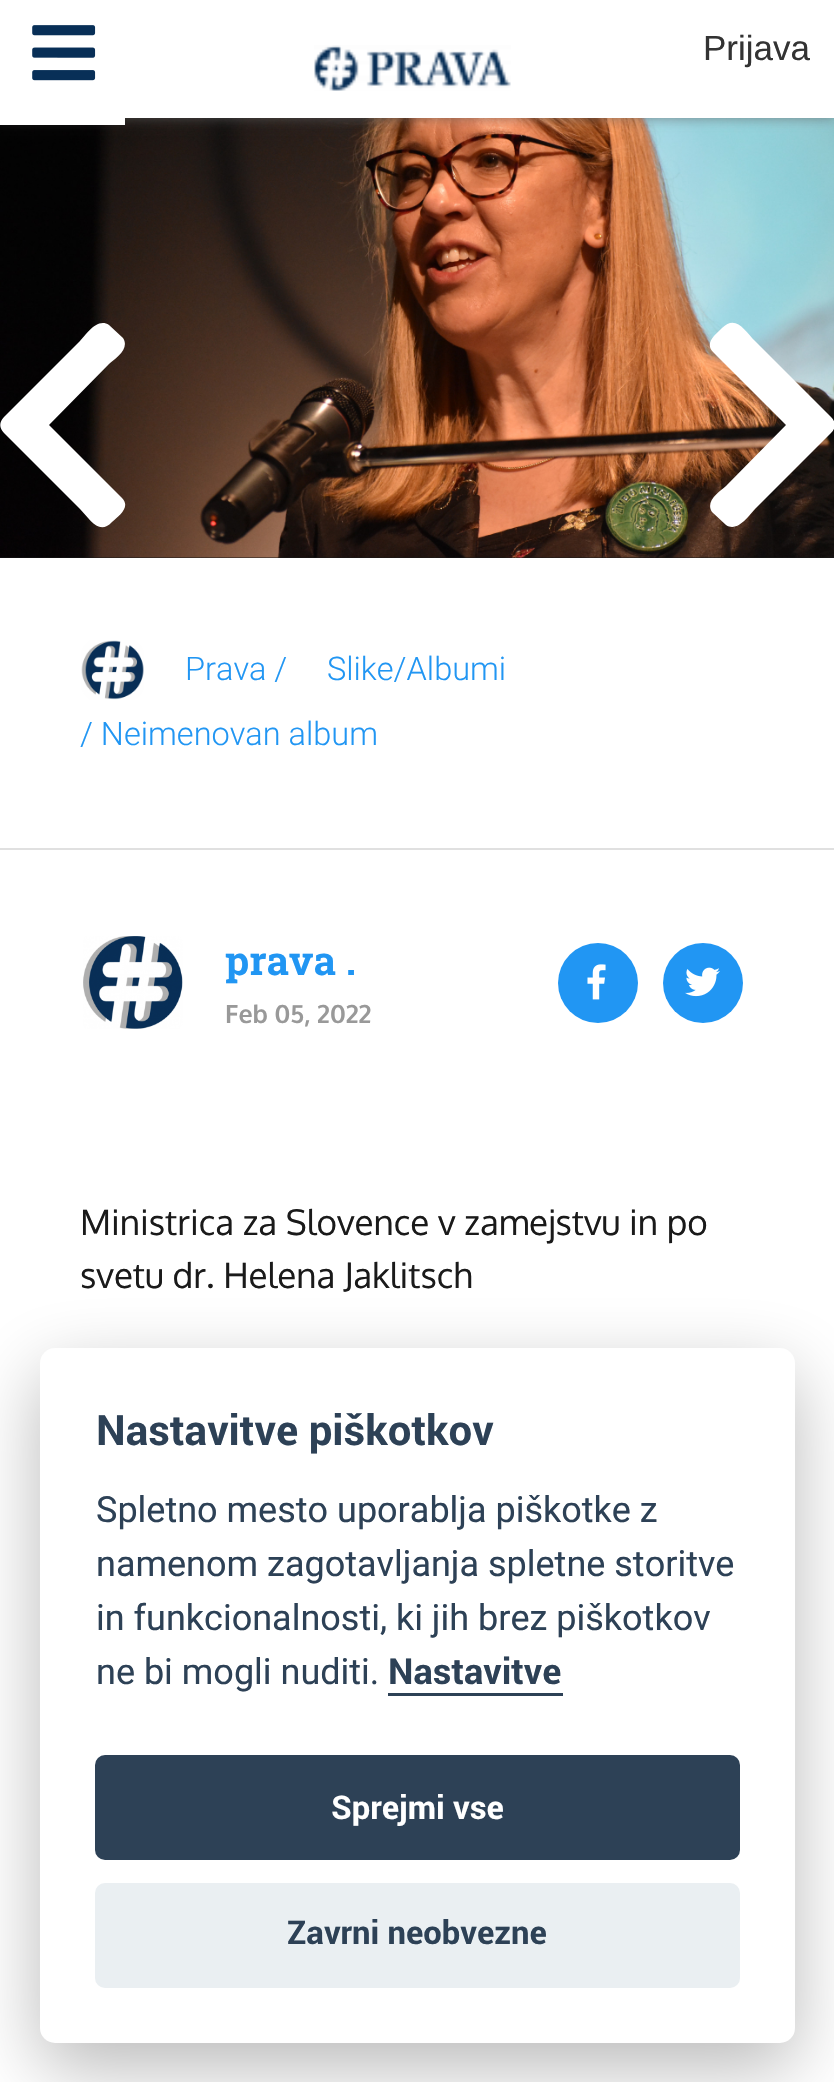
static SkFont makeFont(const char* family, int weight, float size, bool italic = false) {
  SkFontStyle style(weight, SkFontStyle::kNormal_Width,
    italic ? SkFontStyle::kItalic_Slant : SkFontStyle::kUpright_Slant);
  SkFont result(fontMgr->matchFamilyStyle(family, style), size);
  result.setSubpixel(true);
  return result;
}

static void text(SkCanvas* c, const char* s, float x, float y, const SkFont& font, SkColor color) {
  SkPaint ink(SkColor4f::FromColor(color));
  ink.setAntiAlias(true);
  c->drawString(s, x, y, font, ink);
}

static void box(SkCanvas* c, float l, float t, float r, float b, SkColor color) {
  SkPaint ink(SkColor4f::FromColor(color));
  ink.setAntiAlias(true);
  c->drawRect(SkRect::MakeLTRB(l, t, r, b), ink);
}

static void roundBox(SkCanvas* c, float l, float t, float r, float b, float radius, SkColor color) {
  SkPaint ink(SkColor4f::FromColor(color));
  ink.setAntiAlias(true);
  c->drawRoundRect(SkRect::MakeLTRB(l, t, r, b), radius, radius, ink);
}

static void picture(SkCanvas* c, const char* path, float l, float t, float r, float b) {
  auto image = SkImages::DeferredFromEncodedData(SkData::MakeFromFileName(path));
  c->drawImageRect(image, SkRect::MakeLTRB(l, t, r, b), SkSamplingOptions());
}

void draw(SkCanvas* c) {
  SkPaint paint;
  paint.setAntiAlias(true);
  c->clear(0xff181818);
  picture(c, "img_03.png", 0, 118, 834, 558);
  paint.setColor(0xb3646464);
  paint.setMaskFilter(SkMaskFilter::MakeBlur(kNormal_SkBlurStyle, 6));
  c->drawRect(SkRect::MakeLTRB(0, 0, 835, 118), paint);
  paint.setMaskFilter(nullptr);
  box(c, 125, 0, 834, 118, 0xffffffff);
  box(c, 0, 0, 125, 125, 0xffffffff);
  picture(c, "img_01.png", 32, 25, 96, 81);
  picture(c, "img_02.png", 314, 45, 511, 91);
  SkFont face1 = makeFont("Liberation Sans", 400, 35);
  text(c, "Prijava", 703, 60, face1, 0xff333333);
  paint.setColor(0xffffffff);
  c->drawPath(SkPathBuilder().moveTo(4, 417).lineTo(80, 341).cubicTo(85, 336, 97, 317, 109, 325).lineTo(123, 338).cubicTo(130, 349, 116, 358, 109, 364).lineTo(49, 425).lineTo(122, 498).cubicTo(131, 507, 119, 516, 112, 522).cubicTo(99, 536, 90, 519, 80, 509).lineTo(4, 433).cubicTo(-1, 428, -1, 422, 4, 417).close().detach(), paint);
  c->drawPath(SkPathBuilder().moveTo(831, 433).lineTo(755, 509).cubicTo(750, 514, 738, 533, 726, 525).lineTo(712, 512).cubicTo(705, 501, 719, 492, 726, 486).lineTo(786, 425).lineTo(713, 352).cubicTo(704, 343, 716, 334, 722, 328).cubicTo(736, 314, 745, 331, 755, 341).lineTo(831, 417).cubicTo(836, 422, 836, 428, 831, 433).close().detach(), paint);
  box(c, 0, 558, 834, 2082, 0xffffffff);
  box(c, 0, 848, 834, 850, 0x1f000000);
  picture(c, "img_04.png", 81, 640, 144, 700);
  SkFont face2 = makeFont("Roboto", 300, 32.5f);
  text(c, "Prava /", 185, 680, face2, 0xff2196f3);
  text(c, "Slike/Albumi", 327, 680, face2, 0xff2196f3);
  text(c, "/ Neimenovan album", 80, 745, face2, 0xff2196f3);
  picture(c, "img_05.png", 83, 936, 183, 1029);
  SkFont face3 = makeFont("Roboto Slab", 700, 40);
  text(c, "prava .", 225, 975, face3, 0xff2196f3);
  SkFont face4 = makeFont("Oxygen", 700, 25);
  text(c, "Feb 05, 2022", 225, 1023, face4, 0xff999999);
  paint.setColor(0xff2196f3);
  c->drawCircle(598, 983, 40, paint);
  picture(c, "img_06.png", 587, 964, 606, 1000);
  c->drawCircle(703, 983, 40, paint);
  picture(c, "img_07.png", 685, 967, 720, 997);
  SkFont face5 = makeFont("Oxygen", 400, 35);
  text(c, "Ministrica za Slovence v zamejstvu in po", 80, 1235, face5, 0xff1a1a1a);
  text(c, "svetu dr. Helena Jaklitsch", 80, 1288, face5, 0xff1a1a1a);
  paint.setColor(0x47020203);
  paint.setMaskFilter(SkMaskFilter::MakeBlur(kNormal_SkBlurStyle, 37.5f));
  c->drawRoundRect(SkRect::MakeLTRB(40, 1373, 795, 2068), 15, 15, paint);
  paint.setMaskFilter(nullptr);
  roundBox(c, 40, 1348, 795, 2043, 15, 0xffffffff);
  SkFont face6 = makeFont("Roboto", 700, 42);
  text(c, "Nastavitve piškotkov", 96, 1445, face6, 0xff2d4156);
  SkFont face7 = makeFont("Roboto", 400, 36);
  text(c, "Spletno mesto uporablja piškotke z", 96, 1522, face7, 0xff2d4156);
  text(c, "namenom zagotavljanja spletne storitve", 96, 1576, face7, 0xff2d4156);
  text(c, "in funkcionalnosti, ki jih brez piškotkov", 96, 1630, face7, 0xff2d4156);
  text(c, "ne bi mogli nuditi.", 96, 1684, face7, 0xff2d4156);
  SkFont face8 = makeFont("Roboto", 700, 36);
  text(c, "Nastavitve", 388, 1684, face8, 0xff2d4156);
  box(c, 388, 1693, 563, 1696, 0xff2d4156);
  roundBox(c, 95, 1755, 740, 1860, 10, 0xff2d4156);
  SkFont face9 = makeFont("Roboto", 700, 32.75f);
  text(c, "Sprejmi vse", 331, 1819, face9, 0xffffffff);
  roundBox(c, 95, 1883, 740, 1988, 10, 0xffeaeff2);
  text(c, "Zavrni neobvezne", 287, 1944, face9, 0xff2d4156);
}
